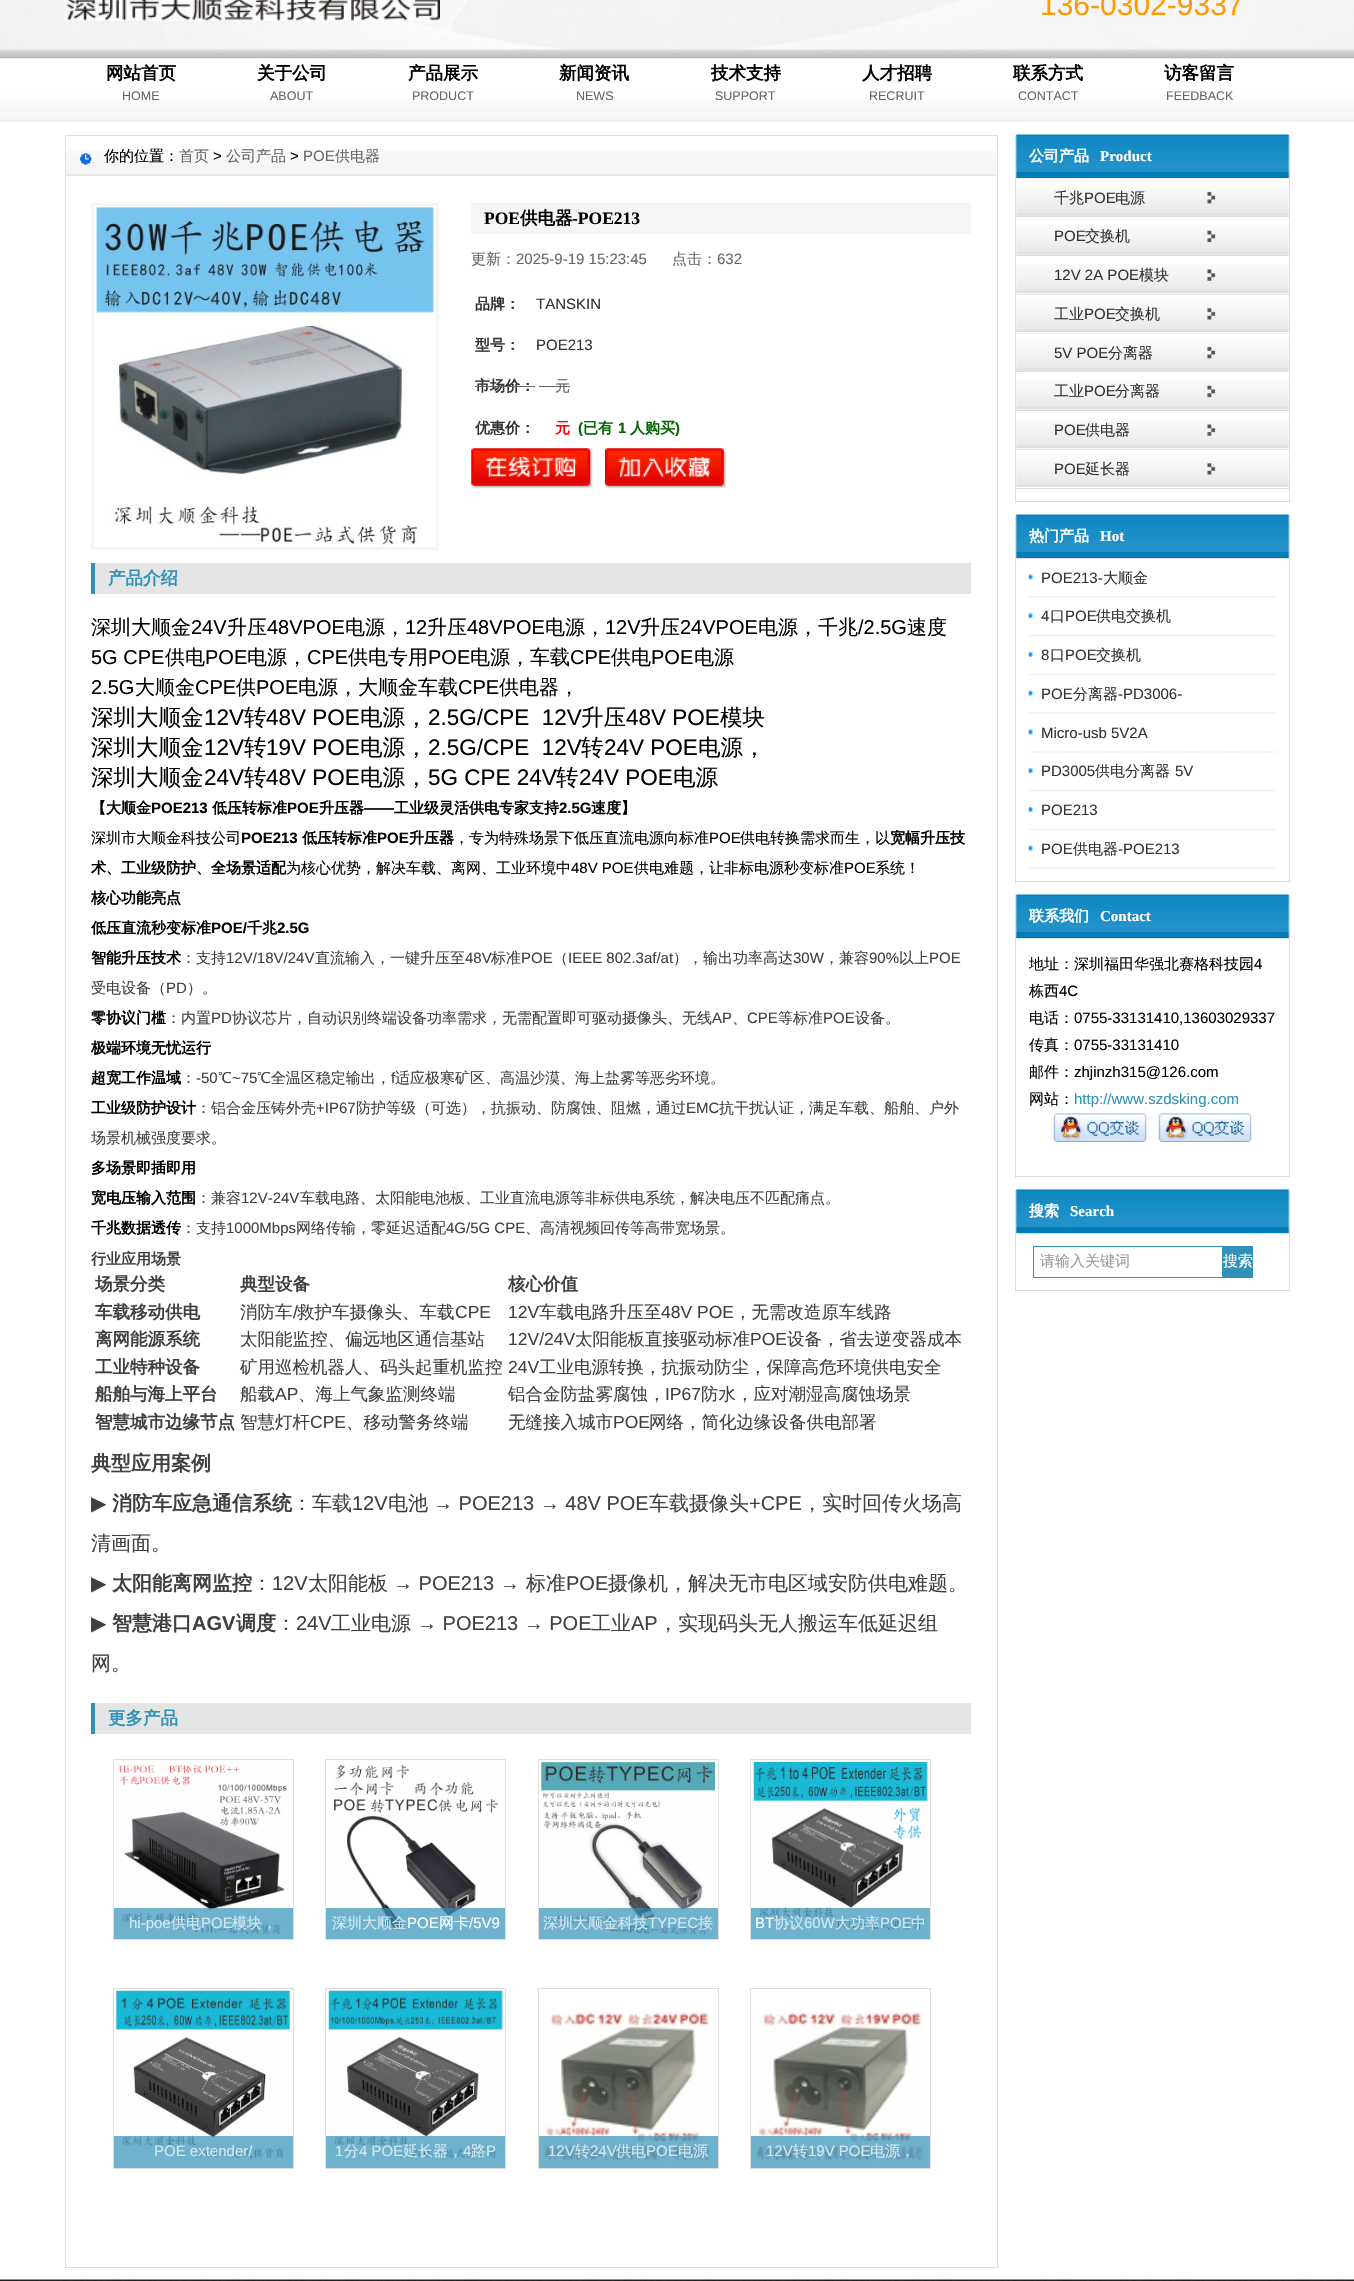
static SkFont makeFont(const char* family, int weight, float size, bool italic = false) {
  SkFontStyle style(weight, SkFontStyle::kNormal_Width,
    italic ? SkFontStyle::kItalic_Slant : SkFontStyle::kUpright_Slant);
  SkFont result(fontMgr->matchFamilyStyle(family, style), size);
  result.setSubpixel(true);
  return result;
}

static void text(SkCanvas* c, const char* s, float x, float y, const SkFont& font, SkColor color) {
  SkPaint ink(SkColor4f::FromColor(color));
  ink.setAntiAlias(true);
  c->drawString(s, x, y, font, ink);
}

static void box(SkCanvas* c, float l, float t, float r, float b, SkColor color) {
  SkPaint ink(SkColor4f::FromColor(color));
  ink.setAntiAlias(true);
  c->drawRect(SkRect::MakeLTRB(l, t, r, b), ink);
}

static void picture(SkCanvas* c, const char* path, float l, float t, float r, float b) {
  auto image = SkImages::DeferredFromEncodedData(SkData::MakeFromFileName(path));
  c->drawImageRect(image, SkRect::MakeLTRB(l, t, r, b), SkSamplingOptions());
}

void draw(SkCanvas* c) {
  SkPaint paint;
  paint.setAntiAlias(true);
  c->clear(0xffffffff);
  picture(c, "img_01.png", 0, 0, 1354, 50);
  picture(c, "img_02.png", 65, 0, 440, 21);
  SkFont face1 = makeFont("Liberation Sans", 400, 30);
  text(c, "136-0302-9337", 1040, 15, face1, 0xffff9900);
  picture(c, "img_03.png", 0, 49, 1354, 122);
  SkFont face2 = makeFont("WenQuanYi Zen Hei", 700, 17.5f);
  text(c, "网站首页", 106, 79, face2, 0xff000000);
  SkFont face3 = makeFont("Liberation Sans", 400, 12.5f);
  text(c, "HOME", 122, 100, face3, 0xff666666);
  box(c, 217, 49, 228, 50, 0xffe4e4e4);
  text(c, "关于公司", 257, 79, face2, 0xff000000);
  text(c, "ABOUT", 270, 100, face3, 0xff666666);
  box(c, 368, 49, 380, 50, 0xffe5e5e5);
  text(c, "产品展示", 408, 79, face2, 0xff000000);
  text(c, "PRODUCT", 412, 100, face3, 0xff666666);
  box(c, 519, 49, 531, 50, 0xffe6e6e6);
  text(c, "新闻资讯", 559, 79, face2, 0xff000000);
  text(c, "NEWS", 576, 100, face3, 0xff666666);
  box(c, 670, 49, 682, 50, 0xffe4e4e4);
  text(c, "技术支持", 711, 79, face2, 0xff000000);
  text(c, "SUPPORT", 715, 100, face3, 0xff666666);
  picture(c, "img_04.png", 821, 49, 834, 50);
  text(c, "人才招聘", 862, 79, face2, 0xff000000);
  text(c, "RECRUIT", 869, 100, face3, 0xff666666);
  box(c, 973, 49, 985, 50, 0xffe5e5e5);
  text(c, "联系方式", 1013, 79, face2, 0xff000000);
  text(c, "CONTACT", 1018, 100, face3, 0xff666666);
  box(c, 1124, 49, 1136, 50, 0xffe5e5e5);
  text(c, "访客留言", 1164, 79, face2, 0xff000000);
  text(c, "FEEDBACK", 1166, 100, face3, 0xff666666);
  paint.setStyle(SkPaint::kStroke_Style);
  paint.setStrokeWidth(1);
  paint.setColor(0xffdddddd);
  c->drawRect(SkRect::MakeLTRB(65.5f, 135.5f, 997.5f, 2267.5f), paint);
  picture(c, "img_05.png", 66, 149, 997, 176);
  picture(c, "img_06.png", 79, 153, 92, 165);
  SkFont face4 = makeFont("WenQuanYi Zen Hei", 500, 15);
  text(c, "你的位置：", 104, 161, face4, 0xff000000);
  text(c, "首页", 179, 161, face4, 0xff666666);
  SkFont face5 = makeFont("Liberation Sans", 400, 15);
  text(c, ">", 213, 161, face5, 0xff000000);
  text(c, "公司产品", 226, 161, face4, 0xff666666);
  text(c, ">", 290, 161, face5, 0xff000000);
  text(c, "POE", 303, 161, face5, 0xff666666);
  text(c, "供电器", 335, 161, face4, 0xff666666);
  paint.setStrokeWidth(3);
  paint.setColor(0xfff5f5f5);
  c->drawRect(SkRect::MakeLTRB(92.5f, 204.5f, 437.5f, 548.5f), paint);
  picture(c, "img_07.png", 96, 207, 434, 545);
  box(c, 471, 203, 971, 234, 0xfff5f5f5);
  SkFont face6 = makeFont("Liberation Serif", 700, 17.5f);
  text(c, "POE", 484, 224, face6, 0xff000000);
  text(c, "供电器", 520, 224, face2, 0xff000000);
  text(c, "-POE213", 572, 224, face6, 0xff000000);
  text(c, "更新：", 471, 264, face4, 0xff666666);
  text(c, "2025-9-19 15:23:45", 516, 264, face5, 0xff666666);
  text(c, "点击：", 672, 264, face4, 0xff666666);
  text(c, "632", 717, 264, face5, 0xff666666);
  SkFont face7 = makeFont("WenQuanYi Zen Hei", 700, 15);
  text(c, "品牌：", 475, 309, face7, 0xff333333);
  text(c, "TANSKIN", 536, 309, face5, 0xff333333);
  text(c, "型号：", 475, 350, face7, 0xff333333);
  text(c, "POE213", 536, 350, face5, 0xff333333);
  text(c, "市场价：", 475, 391, face7, 0xff333333);
  box(c, 475, 386, 535, 387, 0xff666666);
  text(c, "元", 555, 391, face4, 0xff666666);
  box(c, 539, 386, 570, 387, 0xff666666);
  text(c, "优惠价：", 475, 433, face7, 0xff333333);
  text(c, "元", 555, 433, face7, 0xffff0000);
  SkFont face8 = makeFont("Liberation Sans", 700, 15);
  text(c, "(", 578, 433, face8, 0xff006600);
  text(c, "已有", 583, 433, face7, 0xff006600);
  text(c, "1", 618, 433, face8, 0xff006600);
  text(c, "人购买", 630, 433, face7, 0xff006600);
  text(c, ")", 675, 433, face8, 0xff006600);
  picture(c, "img_08.png", 471, 448, 593, 489);
  picture(c, "img_09.png", 605, 448, 727, 489);
  box(c, 95, 563, 971, 594, 0xffe5e5e5);
  box(c, 91, 563, 95, 594, 0xff3092b9);
  text(c, "产品介绍", 108, 584, face2, 0xff3092b9);
  SkFont face9 = makeFont("WenQuanYi Zen Hei", 500, 20);
  text(c, "深圳大顺金", 91, 634, face9, 0xff000000);
  SkFont face10 = makeFont("Liberation Sans", 400, 20);
  text(c, "24V", 191, 634, face10, 0xff000000);
  text(c, "升压", 227, 634, face9, 0xff000000);
  text(c, "48VPOE", 267, 634, face10, 0xff000000);
  text(c, "电源，", 345, 634, face9, 0xff000000);
  text(c, "12", 405, 634, face10, 0xff000000);
  text(c, "升压", 427, 634, face9, 0xff000000);
  text(c, "48VPOE", 467, 634, face10, 0xff000000);
  text(c, "电源，", 545, 634, face9, 0xff000000);
  text(c, "12V", 605, 634, face10, 0xff000000);
  text(c, "升压", 640, 634, face9, 0xff000000);
  text(c, "24VPOE", 680, 634, face10, 0xff000000);
  text(c, "电源，千兆", 758, 634, face9, 0xff000000);
  text(c, "/2.5G", 858, 634, face10, 0xff000000);
  text(c, "速度", 907, 634, face9, 0xff000000);
  text(c, "5G CPE", 91, 664, face10, 0xff000000);
  text(c, "供电", 165, 664, face9, 0xff000000);
  text(c, "POE", 205, 664, face10, 0xff000000);
  text(c, "电源，", 247, 664, face9, 0xff000000);
  text(c, "CPE", 307, 664, face10, 0xff000000);
  text(c, "供电专用", 348, 664, face9, 0xff000000);
  text(c, "POE", 428, 664, face10, 0xff000000);
  text(c, "电源，车载", 470, 664, face9, 0xff000000);
  text(c, "CPE", 570, 664, face10, 0xff000000);
  text(c, "供电", 611, 664, face9, 0xff000000);
  text(c, "POE", 651, 664, face10, 0xff000000);
  text(c, "电源", 694, 664, face9, 0xff000000);
  text(c, "2.5G", 91, 694, face10, 0xff000000);
  text(c, "大顺金", 135, 694, face9, 0xff000000);
  text(c, "CPE", 195, 694, face10, 0xff000000);
  text(c, "供", 236, 694, face9, 0xff000000);
  text(c, "POE", 256, 694, face10, 0xff000000);
  text(c, "电源，大顺金车载", 298, 694, face9, 0xff000000);
  text(c, "CPE", 458, 694, face10, 0xff000000);
  text(c, "供电器，", 499, 694, face9, 0xff000000);
  SkFont face11 = makeFont("WenQuanYi Zen Hei", 500, 22.5f);
  text(c, "深圳大顺金", 91, 725, face11, 0xff000000);
  SkFont face12 = makeFont("Liberation Sans", 400, 22.5f);
  text(c, "12V", 204, 725, face12, 0xff000000);
  text(c, "转", 244, 725, face11, 0xff000000);
  text(c, "48V POE", 266, 725, face12, 0xff000000);
  text(c, "电源，", 360, 725, face11, 0xff000000);
  text(c, "2.5G/CPE  12V", 428, 725, face12, 0xff000000);
  text(c, "升压", 581, 725, face11, 0xff000000);
  text(c, "48V POE", 626, 725, face12, 0xff000000);
  text(c, "模块", 720, 725, face11, 0xff000000);
  text(c, "深圳大顺金", 91, 755, face11, 0xff000000);
  text(c, "12V", 204, 755, face12, 0xff000000);
  text(c, "转", 244, 755, face11, 0xff000000);
  text(c, "19V POE", 266, 755, face12, 0xff000000);
  text(c, "电源，", 360, 755, face11, 0xff000000);
  text(c, "2.5G/CPE  12V", 428, 755, face12, 0xff000000);
  text(c, "转", 581, 755, face11, 0xff000000);
  text(c, "24V POE", 604, 755, face12, 0xff000000);
  text(c, "电源，", 698, 755, face11, 0xff000000);
  text(c, "深圳大顺金", 91, 785, face11, 0xff000000);
  text(c, "24V", 204, 785, face12, 0xff000000);
  text(c, "转", 244, 785, face11, 0xff000000);
  text(c, "48V POE", 266, 785, face12, 0xff000000);
  text(c, "电源，", 360, 785, face11, 0xff000000);
  text(c, "5G CPE 24V", 428, 785, face12, 0xff000000);
  text(c, "转", 556, 785, face11, 0xff000000);
  text(c, "24V POE", 579, 785, face12, 0xff000000);
  text(c, "电源", 673, 785, face11, 0xff000000);
  text(c, "【大顺金", 91, 813, face7, 0xff000000);
  text(c, "POE213", 151, 813, face8, 0xff000000);
  text(c, "低压转标准", 212, 813, face7, 0xff000000);
  text(c, "POE", 287, 813, face8, 0xff000000);
  text(c, "升压器", 319, 813, face7, 0xff000000);
  text(c, "——", 364, 813, face8, 0xff000000);
  text(c, "工业级灵活供电专家支持", 394, 813, face7, 0xff000000);
  text(c, "2.5G", 559, 813, face8, 0xff000000);
  text(c, "速度】", 591, 813, face7, 0xff000000);
  text(c, "深圳市大顺金科技公司", 91, 843, face4, 0xff000000);
  text(c, "POE213", 241, 843, face8, 0xff000000);
  text(c, "低压转标准", 302, 843, face7, 0xff000000);
  text(c, "POE", 377, 843, face8, 0xff000000);
  text(c, "升压器", 409, 843, face7, 0xff000000);
  text(c, "，专为特殊场景下低压直流电源向标准", 454, 843, face4, 0xff000000);
  text(c, "POE", 709, 843, face5, 0xff000000);
  text(c, "供电转换需求而生，以", 740, 843, face4, 0xff000000);
  text(c, "宽幅升压技", 890, 843, face7, 0xff000000);
  text(c, "术、工业级防护、全场景适配", 91, 873, face7, 0xff000000);
  text(c, "为核心优势，解决车载、离网、工业环境中", 286, 873, face4, 0xff000000);
  text(c, "48V POE", 571, 873, face5, 0xff000000);
  text(c, "供电难题，让非标电源秒变标准", 634, 873, face4, 0xff000000);
  text(c, "POE", 844, 873, face5, 0xff000000);
  text(c, "系统！", 875, 873, face4, 0xff000000);
  text(c, "核心功能亮点", 91, 903, face7, 0xff000000);
  text(c, "低压直流秒变标准", 91, 933, face7, 0xff000000);
  text(c, "POE/", 211, 933, face8, 0xff000000);
  text(c, "千兆", 247, 933, face7, 0xff000000);
  text(c, "2.5G", 277, 933, face8, 0xff000000);
  text(c, "智能升压技术", 91, 963, face7, 0xff000000);
  text(c, "：支持", 181, 963, face4, 0xff404040);
  text(c, "12V/18V/24V", 226, 963, face5, 0xff404040);
  text(c, "直流输入，一键升压至", 315, 963, face4, 0xff404040);
  text(c, "48V", 465, 963, face5, 0xff404040);
  text(c, "标准", 491, 963, face4, 0xff404040);
  text(c, "POE", 521, 963, face5, 0xff404040);
  text(c, "（", 553, 963, face4, 0xff404040);
  text(c, "IEEE 802.3af/at", 568, 963, face5, 0xff404040);
  text(c, "），输出功率高达", 673, 963, face4, 0xff404040);
  text(c, "30W", 793, 963, face5, 0xff404040);
  text(c, "，兼容", 824, 963, face4, 0xff404040);
  text(c, "90%", 869, 963, face5, 0xff404040);
  text(c, "以上", 899, 963, face4, 0xff404040);
  text(c, "POE", 929, 963, face5, 0xff404040);
  text(c, "受电设备（", 91, 993, face4, 0xff404040);
  text(c, "PD", 166, 993, face5, 0xff404040);
  text(c, "）。", 187, 993, face4, 0xff404040);
  text(c, "零协议门槛", 91, 1023, face7, 0xff000000);
  text(c, "：内置", 166, 1023, face4, 0xff404040);
  text(c, "PD", 211, 1023, face5, 0xff404040);
  text(c, "协议芯片，自动识别终端设备功率需求，无需配置即可驱动摄像头、无线", 232, 1023, face4, 0xff404040);
  text(c, "AP", 712, 1023, face5, 0xff404040);
  text(c, "、", 732, 1023, face4, 0xff404040);
  text(c, "CPE", 747, 1023, face5, 0xff404040);
  text(c, "等标准", 778, 1023, face4, 0xff404040);
  text(c, "POE", 823, 1023, face5, 0xff404040);
  text(c, "设备。", 855, 1023, face4, 0xff404040);
  text(c, "极端环境无忧运行", 91, 1053, face7, 0xff000000);
  text(c, "超宽工作温域", 91, 1083, face7, 0xff000000);
  text(c, "：", 181, 1083, face4, 0xff404040);
  text(c, "-50", 196, 1083, face5, 0xff404040);
  text(c, "℃", 218, 1083, face4, 0xff404040);
  text(c, "~75", 232, 1083, face5, 0xff404040);
  text(c, "℃全温区稳定输出，", 257, 1083, face4, 0xff404040);
  text(c, "f", 391, 1083, face5, 0xff404040);
  text(c, "适应极寒矿区、高温沙漠、海上盐雾等恶劣环境。", 395, 1083, face4, 0xff404040);
  text(c, "工业级防护设计", 91, 1113, face7, 0xff000000);
  text(c, "：铝合金压铸外壳", 196, 1113, face4, 0xff404040);
  text(c, "+IP67", 316, 1113, face5, 0xff404040);
  text(c, "防护等级（可选），抗振动、防腐蚀、阻燃，通过", 356, 1113, face4, 0xff404040);
  text(c, "EMC", 686, 1113, face5, 0xff404040);
  text(c, "抗干扰认证，满足车载、船舶、户外", 719, 1113, face4, 0xff404040);
  text(c, "场景机械强度要求。", 91, 1143, face4, 0xff404040);
  text(c, "多场景即插即用", 91, 1173, face7, 0xff000000);
  text(c, "宽电压输入范围", 91, 1203, face7, 0xff000000);
  text(c, "：兼容", 196, 1203, face4, 0xff404040);
  text(c, "12V-24V", 241, 1203, face5, 0xff404040);
  text(c, "车载电路、太阳能电池板、工业直流电源等非标供电系统，解决电压不匹配痛点。", 300, 1203, face4, 0xff404040);
  text(c, "千兆数据透传", 91, 1233, face7, 0xff000000);
  text(c, "：支持", 181, 1233, face4, 0xff404040);
  text(c, "1000Mbps", 226, 1233, face5, 0xff404040);
  text(c, "网络传输，零延迟适配", 296, 1233, face4, 0xff404040);
  text(c, "4G/5G CPE", 446, 1233, face5, 0xff404040);
  text(c, "、高清视频回传等高带宽场景。", 525, 1233, face4, 0xff404040);
  text(c, "行业应用场景", 91, 1264, face7, 0xff404040);
  text(c, "场景分类", 95, 1290, face2, 0xff404040);
  text(c, "典型设备", 240, 1290, face2, 0xff404040);
  text(c, "核心价值", 508, 1290, face2, 0xff404040);
  text(c, "车载移动供电", 95, 1318, face2, 0xff404040);
  SkFont face13 = makeFont("WenQuanYi Zen Hei", 500, 17.5f);
  text(c, "消防车", 240, 1318, face13, 0xff404040);
  SkFont face14 = makeFont("Liberation Sans", 400, 17.5f);
  text(c, "/", 293, 1318, face14, 0xff404040);
  text(c, "救护车摄像头、车载", 297, 1318, face13, 0xff404040);
  text(c, "CPE", 455, 1318, face14, 0xff404040);
  text(c, "12V", 508, 1318, face14, 0xff404040);
  text(c, "车载电路升压至", 539, 1318, face13, 0xff404040);
  text(c, "48V POE", 661, 1318, face14, 0xff404040);
  text(c, "，无需改造原车线路", 734, 1318, face13, 0xff404040);
  text(c, "离网能源系统", 95, 1345, face2, 0xff404040);
  text(c, "太阳能监控、偏远地区通信基站", 240, 1345, face13, 0xff404040);
  text(c, "12V/24V", 508, 1345, face14, 0xff404040);
  text(c, "太阳能板直接驱动标准", 575, 1345, face13, 0xff404040);
  text(c, "POE", 750, 1345, face14, 0xff404040);
  text(c, "设备，省去逆变器成本", 787, 1345, face13, 0xff404040);
  text(c, "工业特种设备", 95, 1373, face2, 0xff404040);
  text(c, "矿用巡检机器人、码头起重机监控", 240, 1373, face13, 0xff404040);
  text(c, "24V", 508, 1373, face14, 0xff404040);
  text(c, "工业电源转换，抗振动防尘，保障高危环境供电安全", 539, 1373, face13, 0xff404040);
  text(c, "船舶与海上平台", 95, 1400, face2, 0xff404040);
  text(c, "船载", 240, 1400, face13, 0xff404040);
  text(c, "AP", 275, 1400, face14, 0xff404040);
  text(c, "、海上气象监测终端", 298, 1400, face13, 0xff404040);
  text(c, "铝合金防盐雾腐蚀，", 508, 1400, face13, 0xff404040);
  text(c, "IP67", 665, 1400, face14, 0xff404040);
  text(c, "防水，应对潮湿高腐蚀场景", 701, 1400, face13, 0xff404040);
  text(c, "智慧城市边缘节点", 95, 1428, face2, 0xff404040);
  text(c, "智慧灯杆", 240, 1428, face13, 0xff404040);
  text(c, "CPE", 310, 1428, face14, 0xff404040);
  text(c, "、移动警务终端", 346, 1428, face13, 0xff404040);
  text(c, "无缝接入城市", 508, 1428, face13, 0xff404040);
  text(c, "POE", 613, 1428, face14, 0xff404040);
  text(c, "网络，简化边缘设备供电部署", 649, 1428, face13, 0xff404040);
  SkFont face15 = makeFont("WenQuanYi Zen Hei", 700, 20);
  text(c, "典型应用案例", 91, 1470, face15, 0xff404040);
  SkFont face16 = makeFont("DejaVu Sans", 400, 20);
  text(c, "▶", 91, 1510, face16, 0xff404040);
  text(c, "消防车应急通信系统", 112, 1510, face15, 0xff404040);
  text(c, "：车载", 292, 1510, face9, 0xff404040);
  text(c, "12V", 352, 1510, face10, 0xff404040);
  text(c, "电池", 388, 1510, face9, 0xff404040);
  text(c, "→ POE213 → 48V POE", 433, 1510, face10, 0xff404040);
  text(c, "车载摄像头", 649, 1510, face9, 0xff404040);
  text(c, "+CPE", 749, 1510, face10, 0xff404040);
  text(c, "，实时回传火场高", 802, 1510, face9, 0xff404040);
  text(c, "清画面。", 91, 1550, face9, 0xff404040);
  text(c, "▶", 91, 1590, face16, 0xff404040);
  text(c, "太阳能离网监控", 112, 1590, face15, 0xff404040);
  text(c, "：", 252, 1590, face9, 0xff404040);
  text(c, "12V", 272, 1590, face10, 0xff404040);
  text(c, "太阳能板", 308, 1590, face9, 0xff404040);
  text(c, "→ POE213 →", 393, 1590, face10, 0xff404040);
  text(c, "标准", 526, 1590, face9, 0xff404040);
  text(c, "POE", 566, 1590, face10, 0xff404040);
  text(c, "摄像机，解决无市电区域安防供电难题。", 608, 1590, face9, 0xff404040);
  text(c, "▶", 91, 1630, face16, 0xff404040);
  text(c, "智慧港口", 112, 1630, face15, 0xff404040);
  SkFont face17 = makeFont("Liberation Sans", 700, 20);
  text(c, "AGV", 192, 1630, face17, 0xff404040);
  text(c, "调度", 236, 1630, face15, 0xff404040);
  text(c, "：", 276, 1630, face9, 0xff404040);
  text(c, "24V", 296, 1630, face10, 0xff404040);
  text(c, "工业电源", 331, 1630, face9, 0xff404040);
  text(c, "→ POE213 → POE", 417, 1630, face10, 0xff404040);
  text(c, "工业", 591, 1630, face9, 0xff404040);
  text(c, "AP", 631, 1630, face10, 0xff404040);
  text(c, "，实现码头无人搬运车低延迟组", 658, 1630, face9, 0xff404040);
  text(c, "网。", 91, 1670, face9, 0xff404040);
  box(c, 95, 1703, 971, 1734, 0xffe5e5e5);
  box(c, 91, 1703, 95, 1734, 0xff3092b9);
  text(c, "更多产品", 108, 1724, face2, 0xff3092b9);
  paint.setStrokeWidth(1);
  paint.setColor(0xffdededc);
  c->drawRect(SkRect::MakeLTRB(113.5f, 1759.5f, 293.5f, 1939.5f), paint);
  picture(c, "img_10.png", 119, 1764, 287, 1934);
  box(c, 114, 1908, 293, 1939, 0xb33092b9);
  text(c, "hi-poe", 129, 1928, face5, 0xffd3e7ef);
  text(c, "供电", 171, 1928, face4, 0xffd3e7ef);
  text(c, "POE", 201, 1928, face5, 0xffd3e7ef);
  text(c, "模块，", 232, 1928, face4, 0xffd3e7ef);
  c->drawRect(SkRect::MakeLTRB(325.5f, 1759.5f, 505.5f, 1939.5f), paint);
  picture(c, "img_11.png", 328, 1762, 503, 1936);
  box(c, 326, 1908, 505, 1939, 0xb33092b9);
  text(c, "深圳大顺金", 332, 1928, face4, 0xffd3e7ef);
  text(c, "POE", 407, 1928, face5, 0xffffffff);
  text(c, "网卡", 439, 1928, face4, 0xffffffff);
  text(c, "/5V9", 469, 1928, face5, 0xffffffff);
  c->drawRect(SkRect::MakeLTRB(538.5f, 1759.5f, 718.5f, 1939.5f), paint);
  picture(c, "img_12.png", 541, 1762, 715, 1936);
  box(c, 539, 1908, 718, 1939, 0xb33092b9);
  text(c, "深圳大顺金科技", 543, 1928, face4, 0xffd3e7ef);
  text(c, "TYPEC", 648, 1928, face5, 0xffd3e7ef);
  text(c, "接", 698, 1928, face4, 0xffd3e7ef);
  c->drawRect(SkRect::MakeLTRB(750.5f, 1759.5f, 930.5f, 1939.5f), paint);
  picture(c, "img_13.png", 753, 1762, 928, 1936);
  box(c, 751, 1908, 930, 1939, 0xb33092b9);
  text(c, "BT", 755, 1928, face5, 0xffffffff);
  text(c, "协议", 774, 1928, face4, 0xffd3e7ef);
  text(c, "60W", 804, 1928, face5, 0xffd3e7ef);
  text(c, "大功率", 835, 1928, face4, 0xffd3e7ef);
  text(c, "POE", 880, 1928, face5, 0xffd3e7ef);
  text(c, "中", 911, 1928, face4, 0xffd3e7ef);
  c->drawRect(SkRect::MakeLTRB(113.5f, 1988.5f, 293.5f, 2168.5f), paint);
  picture(c, "img_14.png", 116, 1990, 290, 2165);
  box(c, 114, 2136, 293, 2168, 0xb33092b9);
  text(c, "POE extender/", 154, 2156, face5, 0xffd3e7ef);
  c->drawRect(SkRect::MakeLTRB(325.5f, 1988.5f, 505.5f, 2168.5f), paint);
  picture(c, "img_15.png", 328, 1990, 503, 2159);
  box(c, 326, 2136, 505, 2168, 0xb33092b9);
  text(c, "1", 335, 2156, face5, 0xffd3e7ef);
  text(c, "分", 344, 2156, face4, 0xffd3e7ef);
  text(c, "4 POE", 359, 2156, face5, 0xffd3e7ef);
  text(c, "延长器，", 403, 2156, face4, 0xffd3e7ef);
  text(c, "4", 463, 2156, face5, 0xffd3e7ef);
  text(c, "路", 471, 2156, face4, 0xffd3e7ef);
  text(c, "P", 486, 2156, face5, 0xffd3e7ef);
  c->drawRect(SkRect::MakeLTRB(538.5f, 1988.5f, 718.5f, 2168.5f), paint);
  picture(c, "img_16.png", 543, 2010, 711, 2163);
  box(c, 539, 2136, 718, 2168, 0xb33092b9);
  text(c, "12V", 548, 2156, face5, 0xffd3e7ef);
  text(c, "转", 575, 2156, face4, 0xffd3e7ef);
  text(c, "24V", 590, 2156, face5, 0xffd3e7ef);
  text(c, "供电", 616, 2156, face4, 0xffd3e7ef);
  text(c, "POE", 646, 2156, face5, 0xffd3e7ef);
  text(c, "电源", 678, 2156, face4, 0xffd3e7ef);
  c->drawRect(SkRect::MakeLTRB(750.5f, 1988.5f, 930.5f, 2168.5f), paint);
  picture(c, "img_17.png", 755, 2010, 923, 2163);
  box(c, 751, 2136, 930, 2168, 0xb33092b9);
  text(c, "12V", 766, 2156, face5, 0xffd3e7ef);
  text(c, "转", 793, 2156, face4, 0xffd3e7ef);
  text(c, "19V POE", 808, 2156, face5, 0xffd3e7ef);
  text(c, "电源，", 870, 2156, face4, 0xffd3e7ef);
  box(c, 1289, 135, 1290, 503, 0xffdddddd);
  box(c, 1015, 501, 1290, 502, 0xffdddddd);
  box(c, 1015, 135, 1016, 503, 0xffdddddd);
  picture(c, "img_18.png", 1016, 134, 1289, 178);
  box(c, 1016, 178, 1289, 179, 0xffdddddd);
  text(c, "公司产品", 1029, 161, face7, 0xffffffff);
  SkFont face18 = makeFont("Liberation Serif", 700, 15);
  text(c, "Product", 1100, 161, face18, 0xffffffff);
  picture(c, "img_19.png", 1016, 178, 1289, 216);
  picture(c, "img_20.png", 1207, 191, 1216, 204);
  box(c, 1016, 216, 1289, 217, 0xffdddddd);
  text(c, "千兆", 1054, 203, face4, 0xff333333);
  text(c, "POE", 1084, 203, face5, 0xff333333);
  text(c, "电源", 1115, 203, face4, 0xff333333);
  picture(c, "img_21.png", 1016, 225, 1289, 255);
  picture(c, "img_22.png", 1207, 230, 1216, 243);
  box(c, 1016, 255, 1289, 256, 0xffdddddd);
  text(c, "POE", 1054, 241, face5, 0xff333333);
  text(c, "交换机", 1085, 241, face4, 0xff333333);
  picture(c, "img_23.png", 1016, 264, 1289, 294);
  picture(c, "img_24.png", 1207, 269, 1216, 281);
  box(c, 1016, 294, 1289, 295, 0xffdddddd);
  text(c, "12V 2A POE", 1054, 280, face5, 0xff333333);
  text(c, "模块", 1139, 280, face4, 0xff333333);
  picture(c, "img_25.png", 1016, 294, 1289, 332);
  picture(c, "img_26.png", 1207, 308, 1216, 320);
  box(c, 1016, 333, 1289, 334, 0xffdddddd);
  text(c, "工业", 1054, 319, face4, 0xff333333);
  text(c, "POE", 1084, 319, face5, 0xff333333);
  text(c, "交换机", 1115, 319, face4, 0xff333333);
  picture(c, "img_19.png", 1016, 333, 1289, 371);
  picture(c, "img_20.png", 1207, 346, 1216, 359);
  box(c, 1016, 371, 1289, 372, 0xffdddddd);
  text(c, "5V POE", 1054, 358, face5, 0xff333333);
  text(c, "分离器", 1108, 358, face4, 0xff333333);
  picture(c, "img_21.png", 1016, 380, 1289, 410);
  picture(c, "img_22.png", 1207, 385, 1216, 398);
  box(c, 1016, 410, 1289, 411, 0xffdddddd);
  text(c, "工业", 1054, 396, face4, 0xff333333);
  text(c, "POE", 1084, 396, face5, 0xff333333);
  text(c, "分离器", 1115, 396, face4, 0xff333333);
  picture(c, "img_23.png", 1016, 419, 1289, 449);
  picture(c, "img_24.png", 1207, 424, 1216, 436);
  box(c, 1016, 449, 1289, 450, 0xffdddddd);
  text(c, "POE", 1054, 435, face5, 0xff333333);
  text(c, "供电器", 1085, 435, face4, 0xff333333);
  picture(c, "img_25.png", 1016, 449, 1289, 487);
  picture(c, "img_26.png", 1207, 463, 1216, 475);
  box(c, 1016, 488, 1289, 489, 0xffdddddd);
  text(c, "POE", 1054, 474, face5, 0xff333333);
  text(c, "延长器", 1085, 474, face4, 0xff333333);
  box(c, 1289, 515, 1290, 883, 0xffdddddd);
  box(c, 1015, 881, 1290, 882, 0xffdddddd);
  box(c, 1015, 515, 1016, 883, 0xffdddddd);
  picture(c, "img_18.png", 1016, 514, 1289, 558);
  box(c, 1016, 558, 1289, 559, 0xffdddddd);
  text(c, "热门产品", 1029, 541, face7, 0xffffffff);
  text(c, "Hot", 1100, 541, face18, 0xffffffff);
  picture(c, "img_27.png", 1028, 573, 1033, 580);
  paint.setStrokeWidth(1.2f);
  paint.setColor(0xffdddddd);
  paint.setPathEffect(SkDashPathEffect::Make({{1.25f, 1.25f}}, 0));
  c->drawPath(SkPathBuilder().moveTo(1029, 597).lineTo(1276, 597).detach(), paint);
  paint.setPathEffect(nullptr);
  text(c, "POE213-", 1041, 583, face5, 0xff333333);
  text(c, "大顺金", 1103, 583, face4, 0xff333333);
  picture(c, "img_28.png", 1028, 612, 1033, 619);
  paint.setPathEffect(SkDashPathEffect::Make({{1.25f, 1.25f}}, 0));
  c->drawPath(SkPathBuilder().moveTo(1029, 635.5f).lineTo(1276, 635.5f).detach(), paint);
  paint.setPathEffect(nullptr);
  text(c, "4", 1041, 621, face5, 0xff333333);
  text(c, "口", 1050, 621, face4, 0xff333333);
  text(c, "POE", 1065, 621, face5, 0xff333333);
  text(c, "供电交换机", 1096, 621, face4, 0xff333333);
  picture(c, "img_29.png", 1028, 651, 1033, 657);
  paint.setPathEffect(SkDashPathEffect::Make({{1.25f, 1.25f}}, 0));
  c->drawPath(SkPathBuilder().moveTo(1029, 674.5f).lineTo(1276, 674.5f).detach(), paint);
  paint.setPathEffect(nullptr);
  text(c, "8", 1041, 660, face5, 0xff333333);
  text(c, "口", 1050, 660, face4, 0xff333333);
  text(c, "POE", 1065, 660, face5, 0xff333333);
  text(c, "交换机", 1096, 660, face4, 0xff333333);
  picture(c, "img_30.png", 1028, 689, 1033, 696);
  paint.setPathEffect(SkDashPathEffect::Make({{1.25f, 1.25f}}, 0));
  c->drawPath(SkPathBuilder().moveTo(1029, 713).lineTo(1276, 713).detach(), paint);
  paint.setPathEffect(nullptr);
  text(c, "POE", 1041, 699, face5, 0xff333333);
  text(c, "分离器", 1073, 699, face4, 0xff333333);
  text(c, "-PD3006-", 1118, 699, face5, 0xff333333);
  picture(c, "img_27.png", 1028, 728, 1033, 735);
  paint.setPathEffect(SkDashPathEffect::Make({{1.25f, 1.25f}}, 0));
  c->drawPath(SkPathBuilder().moveTo(1029, 752).lineTo(1276, 752).detach(), paint);
  paint.setPathEffect(nullptr);
  text(c, "Micro-usb 5V2A", 1041, 738, face5, 0xff333333);
  picture(c, "img_28.png", 1028, 767, 1033, 774);
  paint.setPathEffect(SkDashPathEffect::Make({{1.25f, 1.25f}}, 0));
  c->drawPath(SkPathBuilder().moveTo(1029, 790.5f).lineTo(1276, 790.5f).detach(), paint);
  paint.setPathEffect(nullptr);
  text(c, "PD3005", 1041, 776, face5, 0xff333333);
  text(c, "供电分离器", 1095, 776, face4, 0xff333333);
  text(c, "5V", 1175, 776, face5, 0xff333333);
  picture(c, "img_29.png", 1028, 806, 1033, 812);
  paint.setPathEffect(SkDashPathEffect::Make({{1.25f, 1.25f}}, 0));
  c->drawPath(SkPathBuilder().moveTo(1029, 829.5f).lineTo(1276, 829.5f).detach(), paint);
  paint.setPathEffect(nullptr);
  text(c, "POE213", 1041, 815, face5, 0xff333333);
  picture(c, "img_31.png", 1028, 844, 1033, 851);
  paint.setPathEffect(SkDashPathEffect::Make({{1.25f, 1.25f}}, 0));
  c->drawPath(SkPathBuilder().moveTo(1029, 868).lineTo(1276, 868).detach(), paint);
  paint.setPathEffect(nullptr);
  text(c, "POE", 1041, 854, face5, 0xff333333);
  text(c, "供电器", 1073, 854, face4, 0xff333333);
  text(c, "-POE213", 1118, 854, face5, 0xff333333);
  box(c, 1289, 895, 1290, 1178, 0xffdddddd);
  box(c, 1015, 1176, 1290, 1177, 0xffdddddd);
  box(c, 1015, 895, 1016, 1178, 0xffdddddd);
  picture(c, "img_18.png", 1016, 894, 1289, 938);
  box(c, 1016, 938, 1289, 939, 0xffdddddd);
  text(c, "联系我们", 1029, 921, face7, 0xffffffff);
  text(c, "Contact", 1100, 921, face18, 0xffffffff);
  text(c, "地址：深圳福田华强北赛格科技园", 1029, 969, face4, 0xff000000);
  text(c, "4", 1254, 969, face5, 0xff000000);
  text(c, "栋西", 1029, 996, face4, 0xff000000);
  text(c, "4C", 1059, 996, face5, 0xff000000);
  text(c, "电话：", 1029, 1023, face4, 0xff000000);
  text(c, "0755-33131410,13603029337", 1074, 1023, face5, 0xff000000);
  text(c, "传真：", 1029, 1050, face4, 0xff000000);
  text(c, "0755-33131410", 1074, 1050, face5, 0xff000000);
  text(c, "邮件：", 1029, 1077, face4, 0xff000000);
  text(c, "zhjinzh315@126.com", 1074, 1077, face5, 0xff000000);
  text(c, "网站：", 1029, 1104, face4, 0xff000000);
  text(c, "http://www.szdsking.com", 1074, 1104, face5, 0xff3092b9);
  picture(c, "img_32.png", 1053, 1113, 1147, 1142);
  picture(c, "img_33.png", 1158, 1113, 1252, 1142);
  box(c, 1289, 1190, 1290, 1291, 0xffdddddd);
  box(c, 1015, 1290, 1290, 1291, 0xffdddddd);
  box(c, 1015, 1190, 1016, 1291, 0xffdddddd);
  picture(c, "img_18.png", 1016, 1189, 1289, 1233);
  box(c, 1016, 1233, 1289, 1234, 0xffdddddd);
  text(c, "搜索", 1029, 1216, face7, 0xffffffff);
  text(c, "Search", 1070, 1216, face18, 0xffffffff);
  paint.setStrokeWidth(1);
  paint.setColor(0xff3092b9);
  c->drawRect(SkRect::MakeLTRB(1033.5f, 1246.5f, 1222.5f, 1277.5f), paint);
  text(c, "请输入关键词", 1040, 1266, face4, 0xff999999);
  box(c, 1223, 1246, 1253, 1278, 0xff3092b9);
  c->save();
  c->clipRect(SkRect::MakeLTRB(1223, 1246, 1253, 1278));
  text(c, "搜索", 1223, 1266, face4, 0xffffffff);
  c->restore();
  picture(c, "img_34.png", 0, 2279, 1354, 2281);
}
